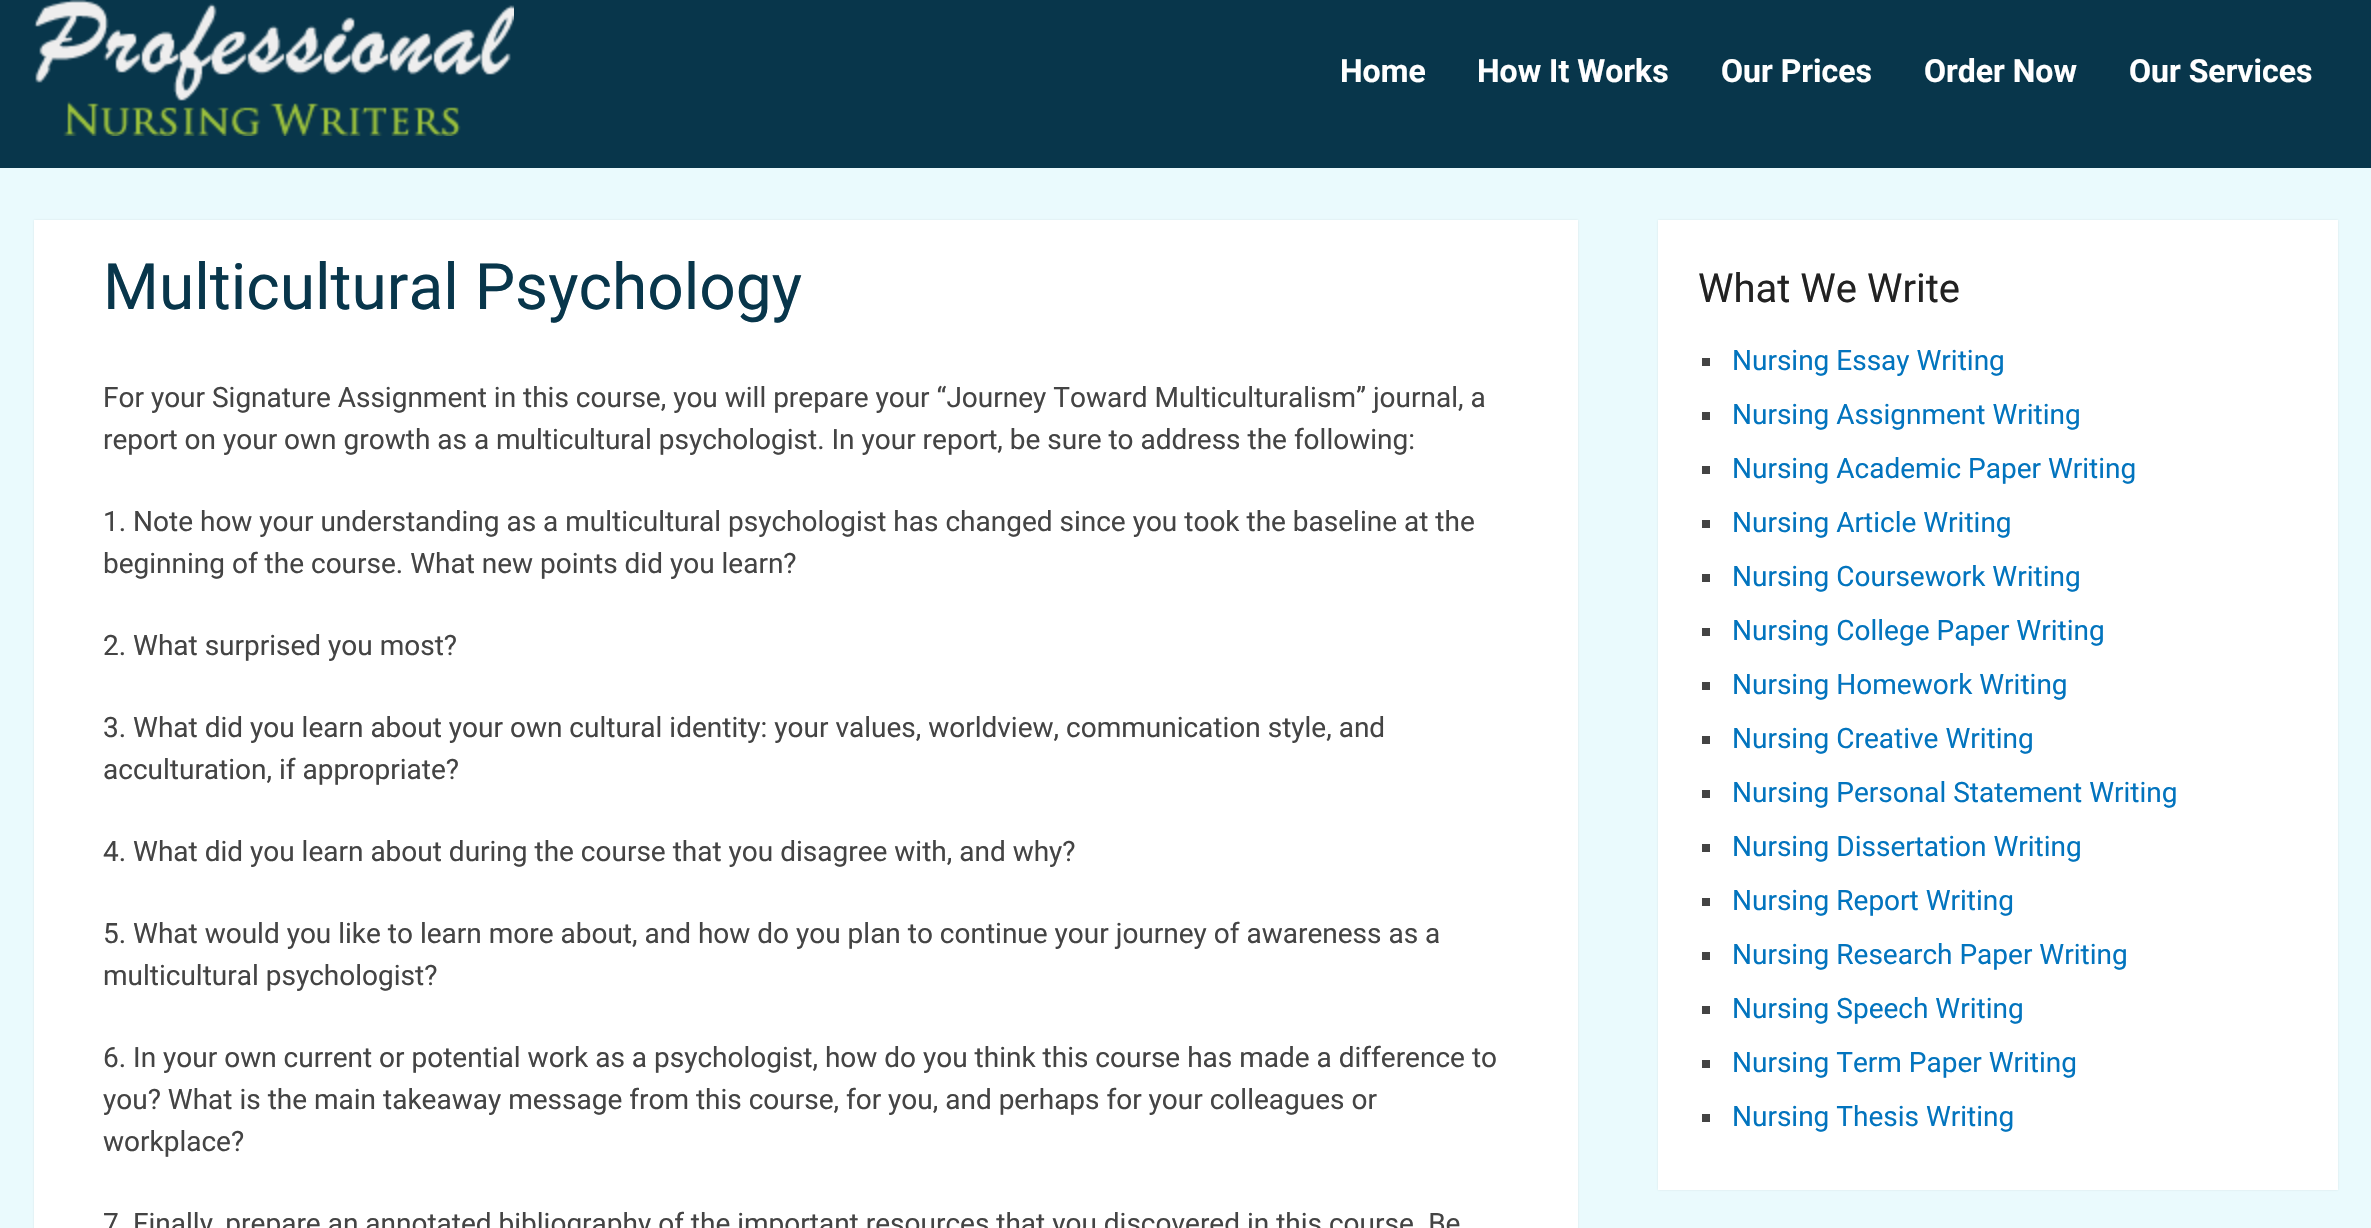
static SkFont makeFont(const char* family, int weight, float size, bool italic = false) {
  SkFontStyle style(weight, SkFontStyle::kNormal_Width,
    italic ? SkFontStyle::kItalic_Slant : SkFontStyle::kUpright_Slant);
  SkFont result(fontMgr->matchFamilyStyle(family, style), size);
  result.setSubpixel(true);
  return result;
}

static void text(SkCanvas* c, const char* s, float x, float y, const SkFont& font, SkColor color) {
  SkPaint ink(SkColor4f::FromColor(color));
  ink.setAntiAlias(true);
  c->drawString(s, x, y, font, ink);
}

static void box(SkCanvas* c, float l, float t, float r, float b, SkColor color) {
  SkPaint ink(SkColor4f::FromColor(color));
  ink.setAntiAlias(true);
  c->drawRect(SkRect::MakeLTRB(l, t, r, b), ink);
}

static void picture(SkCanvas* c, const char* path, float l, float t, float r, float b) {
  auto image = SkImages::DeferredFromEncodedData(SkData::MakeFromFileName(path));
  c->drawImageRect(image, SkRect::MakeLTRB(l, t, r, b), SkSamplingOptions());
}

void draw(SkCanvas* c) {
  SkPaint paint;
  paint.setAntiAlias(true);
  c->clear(0xffeafafd);
  box(c, 0, 0, 2371, 168, 0xff08364b);
  picture(c, "img_01.png", 34, 0, 514, 136);
  SkFont face1 = makeFont("Roboto", 700, 32);
  text(c, "Home", 1340, 82, face1, 0xffffffff);
  text(c, "How It Works", 1477, 82, face1, 0xffffffff);
  text(c, "Our Prices", 1721, 82, face1, 0xffffffff);
  text(c, "Order Now", 1924, 82, face1, 0xffffffff);
  text(c, "Our Services", 2129, 82, face1, 0xffffffff);
  paint.setColor(0x1a323232);
  paint.setMaskFilter(SkMaskFilter::MakeBlur(kNormal_SkBlurStyle, 1));
  c->drawRect(SkRect::MakeLTRB(34, 220, 1578, 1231), paint);
  paint.setMaskFilter(nullptr);
  box(c, 34, 220, 1578, 1228, 0xffffffff);
  SkFont face2 = makeFont("Roboto", 400, 64);
  text(c, "Multicultural Psychology", 103, 309, face2, 0xff08364b);
  SkFont face3 = makeFont("Roboto", 400, 28);
  text(c, "For your Signature Assignment in this course, you will prepare your “Journey Toward Multiculturalism” journal, a", 103, 407, face3, 0xff444444);
  text(c, "report on your own growth as a multicultural psychologist. In your report, be sure to address the following:", 103, 449, face3, 0xff444444);
  text(c, "1. Note how your understanding as a multicultural psychologist has changed since you took the baseline at the", 103, 531, face3, 0xff444444);
  text(c, "beginning of the course. What new points did you learn?", 103, 573, face3, 0xff444444);
  text(c, "2. What surprised you most?", 103, 655, face3, 0xff444444);
  text(c, "3. What did you learn about your own cultural identity: your values, worldview, communication style, and", 103, 737, face3, 0xff444444);
  text(c, "acculturation, if appropriate?", 103, 779, face3, 0xff444444);
  text(c, "4. What did you learn about during the course that you disagree with, and why?", 103, 861, face3, 0xff444444);
  text(c, "5. What would you like to learn more about, and how do you plan to continue your journey of awareness as a", 103, 943, face3, 0xff444444);
  text(c, "multicultural psychologist?", 103, 985, face3, 0xff444444);
  text(c, "6. In your own current or potential work as a psychologist, how do you think this course has made a difference to", 103, 1067, face3, 0xff444444);
  text(c, "you? What is the main takeaway message from this course, for you, and perhaps for your colleagues or", 103, 1109, face3, 0xff444444);
  text(c, "workplace?", 103, 1151, face3, 0xff444444);
  text(c, "7. Finally, prepare an annotated bibliography of the important resources that you discovered in this course. Be", 103, 1233, face3, 0xff444444);
  paint.setMaskFilter(SkMaskFilter::MakeBlur(kNormal_SkBlurStyle, 1));
  c->drawRect(SkRect::MakeLTRB(1658, 220, 2338, 1190), paint);
  paint.setMaskFilter(nullptr);
  box(c, 1658, 220, 2338, 1190, 0xffffffff);
  SkFont face4 = makeFont("Roboto", 400, 40);
  text(c, "What We Write", 1698, 302, face4, 0xff222222);
  box(c, 1702, 358, 1710, 366, 0xff444444);
  text(c, "Nursing Essay Writing", 1732, 370, face3, 0xff0274be);
  box(c, 1702, 412, 1710, 420, 0xff444444);
  text(c, "Nursing Assignment Writing", 1732, 424, face3, 0xff0274be);
  box(c, 1702, 466, 1710, 474, 0xff444444);
  text(c, "Nursing Academic Paper Writing", 1732, 478, face3, 0xff0274be);
  box(c, 1702, 520, 1710, 528, 0xff444444);
  text(c, "Nursing Article Writing", 1732, 532, face3, 0xff0274be);
  box(c, 1702, 574, 1710, 582, 0xff444444);
  text(c, "Nursing Coursework Writing", 1732, 586, face3, 0xff0274be);
  box(c, 1702, 628, 1710, 636, 0xff444444);
  text(c, "Nursing College Paper Writing", 1732, 640, face3, 0xff0274be);
  box(c, 1702, 682, 1710, 690, 0xff444444);
  text(c, "Nursing Homework Writing", 1732, 694, face3, 0xff0274be);
  box(c, 1702, 736, 1710, 744, 0xff444444);
  text(c, "Nursing Creative Writing", 1732, 748, face3, 0xff0274be);
  box(c, 1702, 790, 1710, 798, 0xff444444);
  text(c, "Nursing Personal Statement Writing", 1732, 802, face3, 0xff0274be);
  box(c, 1702, 844, 1710, 852, 0xff444444);
  text(c, "Nursing Dissertation Writing", 1732, 856, face3, 0xff0274be);
  box(c, 1702, 898, 1710, 906, 0xff444444);
  text(c, "Nursing Report Writing", 1732, 910, face3, 0xff0274be);
  box(c, 1702, 952, 1710, 960, 0xff444444);
  text(c, "Nursing Research Paper Writing", 1732, 964, face3, 0xff0274be);
  box(c, 1702, 1006, 1710, 1014, 0xff444444);
  text(c, "Nursing Speech Writing", 1732, 1018, face3, 0xff0274be);
  box(c, 1702, 1060, 1710, 1068, 0xff444444);
  text(c, "Nursing Term Paper Writing", 1732, 1072, face3, 0xff0274be);
  box(c, 1702, 1114, 1710, 1122, 0xff444444);
  text(c, "Nursing Thesis Writing", 1732, 1126, face3, 0xff0274be);
}
